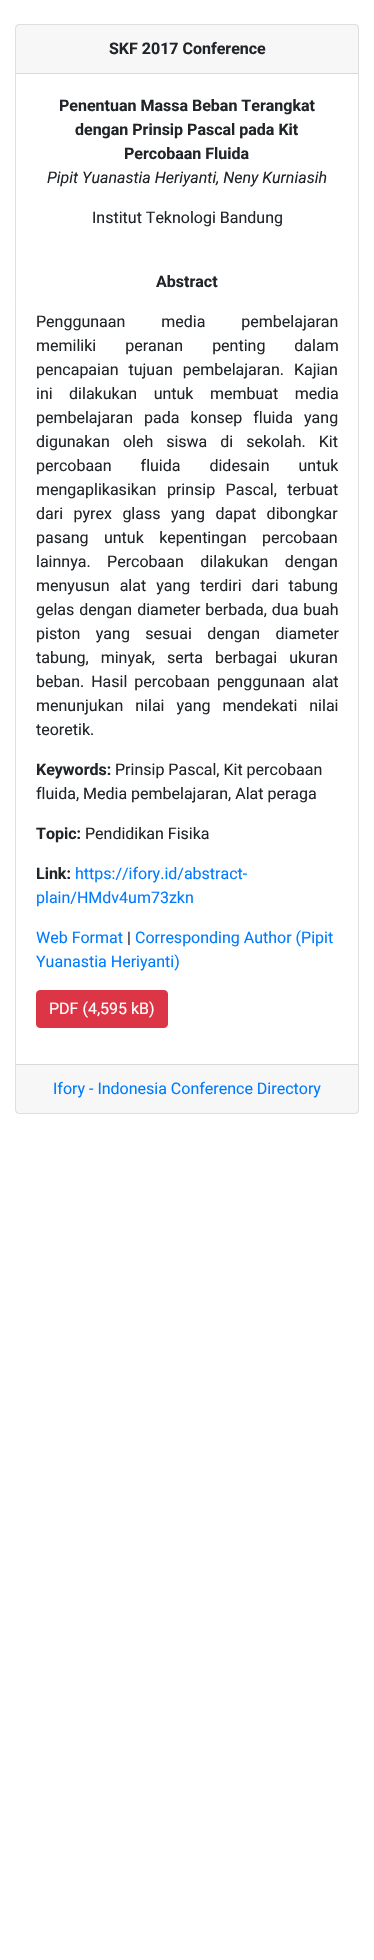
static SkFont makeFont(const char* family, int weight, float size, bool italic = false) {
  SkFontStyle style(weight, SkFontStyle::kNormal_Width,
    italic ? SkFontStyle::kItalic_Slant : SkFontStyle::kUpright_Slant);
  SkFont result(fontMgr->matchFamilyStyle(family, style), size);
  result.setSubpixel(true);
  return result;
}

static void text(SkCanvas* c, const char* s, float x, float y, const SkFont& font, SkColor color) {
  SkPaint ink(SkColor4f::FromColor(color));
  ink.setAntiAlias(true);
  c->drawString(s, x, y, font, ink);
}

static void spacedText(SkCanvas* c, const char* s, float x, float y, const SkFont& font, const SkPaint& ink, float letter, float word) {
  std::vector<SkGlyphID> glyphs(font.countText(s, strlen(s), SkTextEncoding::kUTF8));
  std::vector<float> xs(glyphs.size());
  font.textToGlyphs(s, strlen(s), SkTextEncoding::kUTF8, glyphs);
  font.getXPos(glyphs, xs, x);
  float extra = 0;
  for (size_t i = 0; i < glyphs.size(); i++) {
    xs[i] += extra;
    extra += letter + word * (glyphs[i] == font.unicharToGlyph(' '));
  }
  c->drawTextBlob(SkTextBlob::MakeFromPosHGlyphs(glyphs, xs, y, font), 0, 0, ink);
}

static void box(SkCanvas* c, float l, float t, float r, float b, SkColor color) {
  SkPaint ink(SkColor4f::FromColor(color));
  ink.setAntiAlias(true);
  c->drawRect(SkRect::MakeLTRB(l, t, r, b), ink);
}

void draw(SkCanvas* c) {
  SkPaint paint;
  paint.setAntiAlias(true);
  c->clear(0xffffffff);
  paint.setStyle(SkPaint::kStroke_Style);
  paint.setStrokeWidth(1);
  paint.setColor(0xffdfdfdf);
  c->drawRoundRect(SkRect::MakeLTRB(15.5f, 24.5f, 358.5f, 1113.5f), 3.5f, 3.5f, paint);
  box(c, 16, 25, 358, 73, 0x08000000);
  box(c, 16, 73, 358, 74, 0xffd8d8d8);
  SkFont face1 = makeFont("Roboto", 700, 16);
  text(c, "SKF 2017 Conference", 109, 54, face1, 0xff212529);
  text(c, "Penentuan Massa Beban Terangkat", 59, 111, face1, 0xff212529);
  text(c, "dengan Prinsip Pascal pada Kit", 75, 135, face1, 0xff212529);
  text(c, "Percobaan Fluida", 124, 159, face1, 0xff212529);
  SkFont face2 = makeFont("Roboto", 400, 16, true);
  text(c, "Pipit Yuanastia Heriyanti, Neny Kurniasih", 47, 183, face2, 0xff212529);
  SkFont face3 = makeFont("Roboto", 400, 16);
  text(c, "Institut Teknologi Bandung", 92, 223, face3, 0xff212529);
  text(c, "Abstract", 156, 287, face1, 0xff212529);
  paint.setStyle(SkPaint::kFill_Style);
  paint.setColor(0xff212529);
  spacedText(c, "Penggunaan media pembelajaran", 36, 327, face3, paint, 0, 32);
  spacedText(c, "memiliki peranan penting dalam", 36, 351, face3, paint, 0, 25);
  spacedText(c, "pencapaian tujuan pembelajaran. Kajian", 36, 375, face3, paint, 0, 6);
  spacedText(c, "ini dilakukan untuk membuat media", 36, 399, face3, paint, 0, 12.5f);
  spacedText(c, "pembelajaran pada konsep fluida yang", 36, 423, face3, paint, 0, 7);
  spacedText(c, "digunakan oleh siswa di sekolah. Kit", 36, 447, face3, paint, 0, 9);
  spacedText(c, "percobaan fluida didesain untuk", 36, 471, face3, paint, 0, 25);
  spacedText(c, "mengaplikasikan prinsip Pascal, terbuat", 36, 495, face3, paint, 0, 6.5f);
  spacedText(c, "dari pyrex glass yang dapat dibongkar", 36, 519, face3, paint, 0, 6.5f);
  spacedText(c, "pasang untuk kepentingan percobaan", 36, 543, face3, paint, 0, 11.5f);
  spacedText(c, "lainnya. Percobaan dilakukan dengan", 36, 567, face3, paint, 0, 12.5f);
  spacedText(c, "menyusun alat yang terdiri dari tabung", 36, 591, face3, paint, 0, 6);
  spacedText(c, "gelas dengan diameter berbada, dua buah", 36, 615, face3, paint, 0, 1);
  spacedText(c, "piston yang sesuai dengan diameter", 36, 639, face3, paint, 0, 11.5f);
  spacedText(c, "tabung, minyak, serta berbagai ukuran", 36, 663, face3, paint, 0, 8);
  spacedText(c, "beban. Hasil percobaan penggunaan alat", 36, 687, face3, paint, 0, 3);
  spacedText(c, "menunjukan nilai yang mendekati nilai", 36, 711, face3, paint, 0, 8);
  text(c, "teoretik.", 36, 735, face3, 0xff212529);
  text(c, "Keywords:", 36, 775, face1, 0xff212529);
  text(c, "Prinsip Pascal, Kit percobaan", 115, 775, face3, 0xff212529);
  text(c, "fluida, Media pembelajaran, Alat peraga", 36, 799, face3, 0xff212529);
  text(c, "Topic:", 36, 839, face1, 0xff212529);
  text(c, "Pendidikan Fisika", 85, 839, face3, 0xff212529);
  text(c, "Link:", 36, 879, face1, 0xff212529);
  text(c, "https://ifory.id/abstract-", 75, 879, face3, 0xff007bff);
  text(c, "plain/HMdv4um73zkn", 36, 903, face3, 0xff007bff);
  text(c, "Web Format", 36, 943, face3, 0xff007bff);
  text(c, "|", 127, 943, face3, 0xff212529);
  text(c, "Corresponding Author (Pipit", 135, 943, face3, 0xff007bff);
  text(c, "Yuanastia Heriyanti)", 36, 967, face3, 0xff007bff);
  paint.setColor(0xffdc3545);
  c->drawRoundRect(SkRect::MakeLTRB(36.5f, 990.5f, 167.5f, 1027.5f), 3.5f, 3.5f, paint);
  paint.setStyle(SkPaint::kStroke_Style);
  c->drawRoundRect(SkRect::MakeLTRB(36.5f, 990.5f, 167.5f, 1027.5f), 3.5f, 3.5f, paint);
  text(c, "PDF (4,595 kB)", 49, 1014, face3, 0xffffffff);
  box(c, 16, 1065, 358, 1113, 0x08000000);
  box(c, 16, 1064, 358, 1065, 0xffd8d8d8);
  text(c, "Ifory - Indonesia Conference Directory", 53, 1094, face3, 0xff007bff);
}
